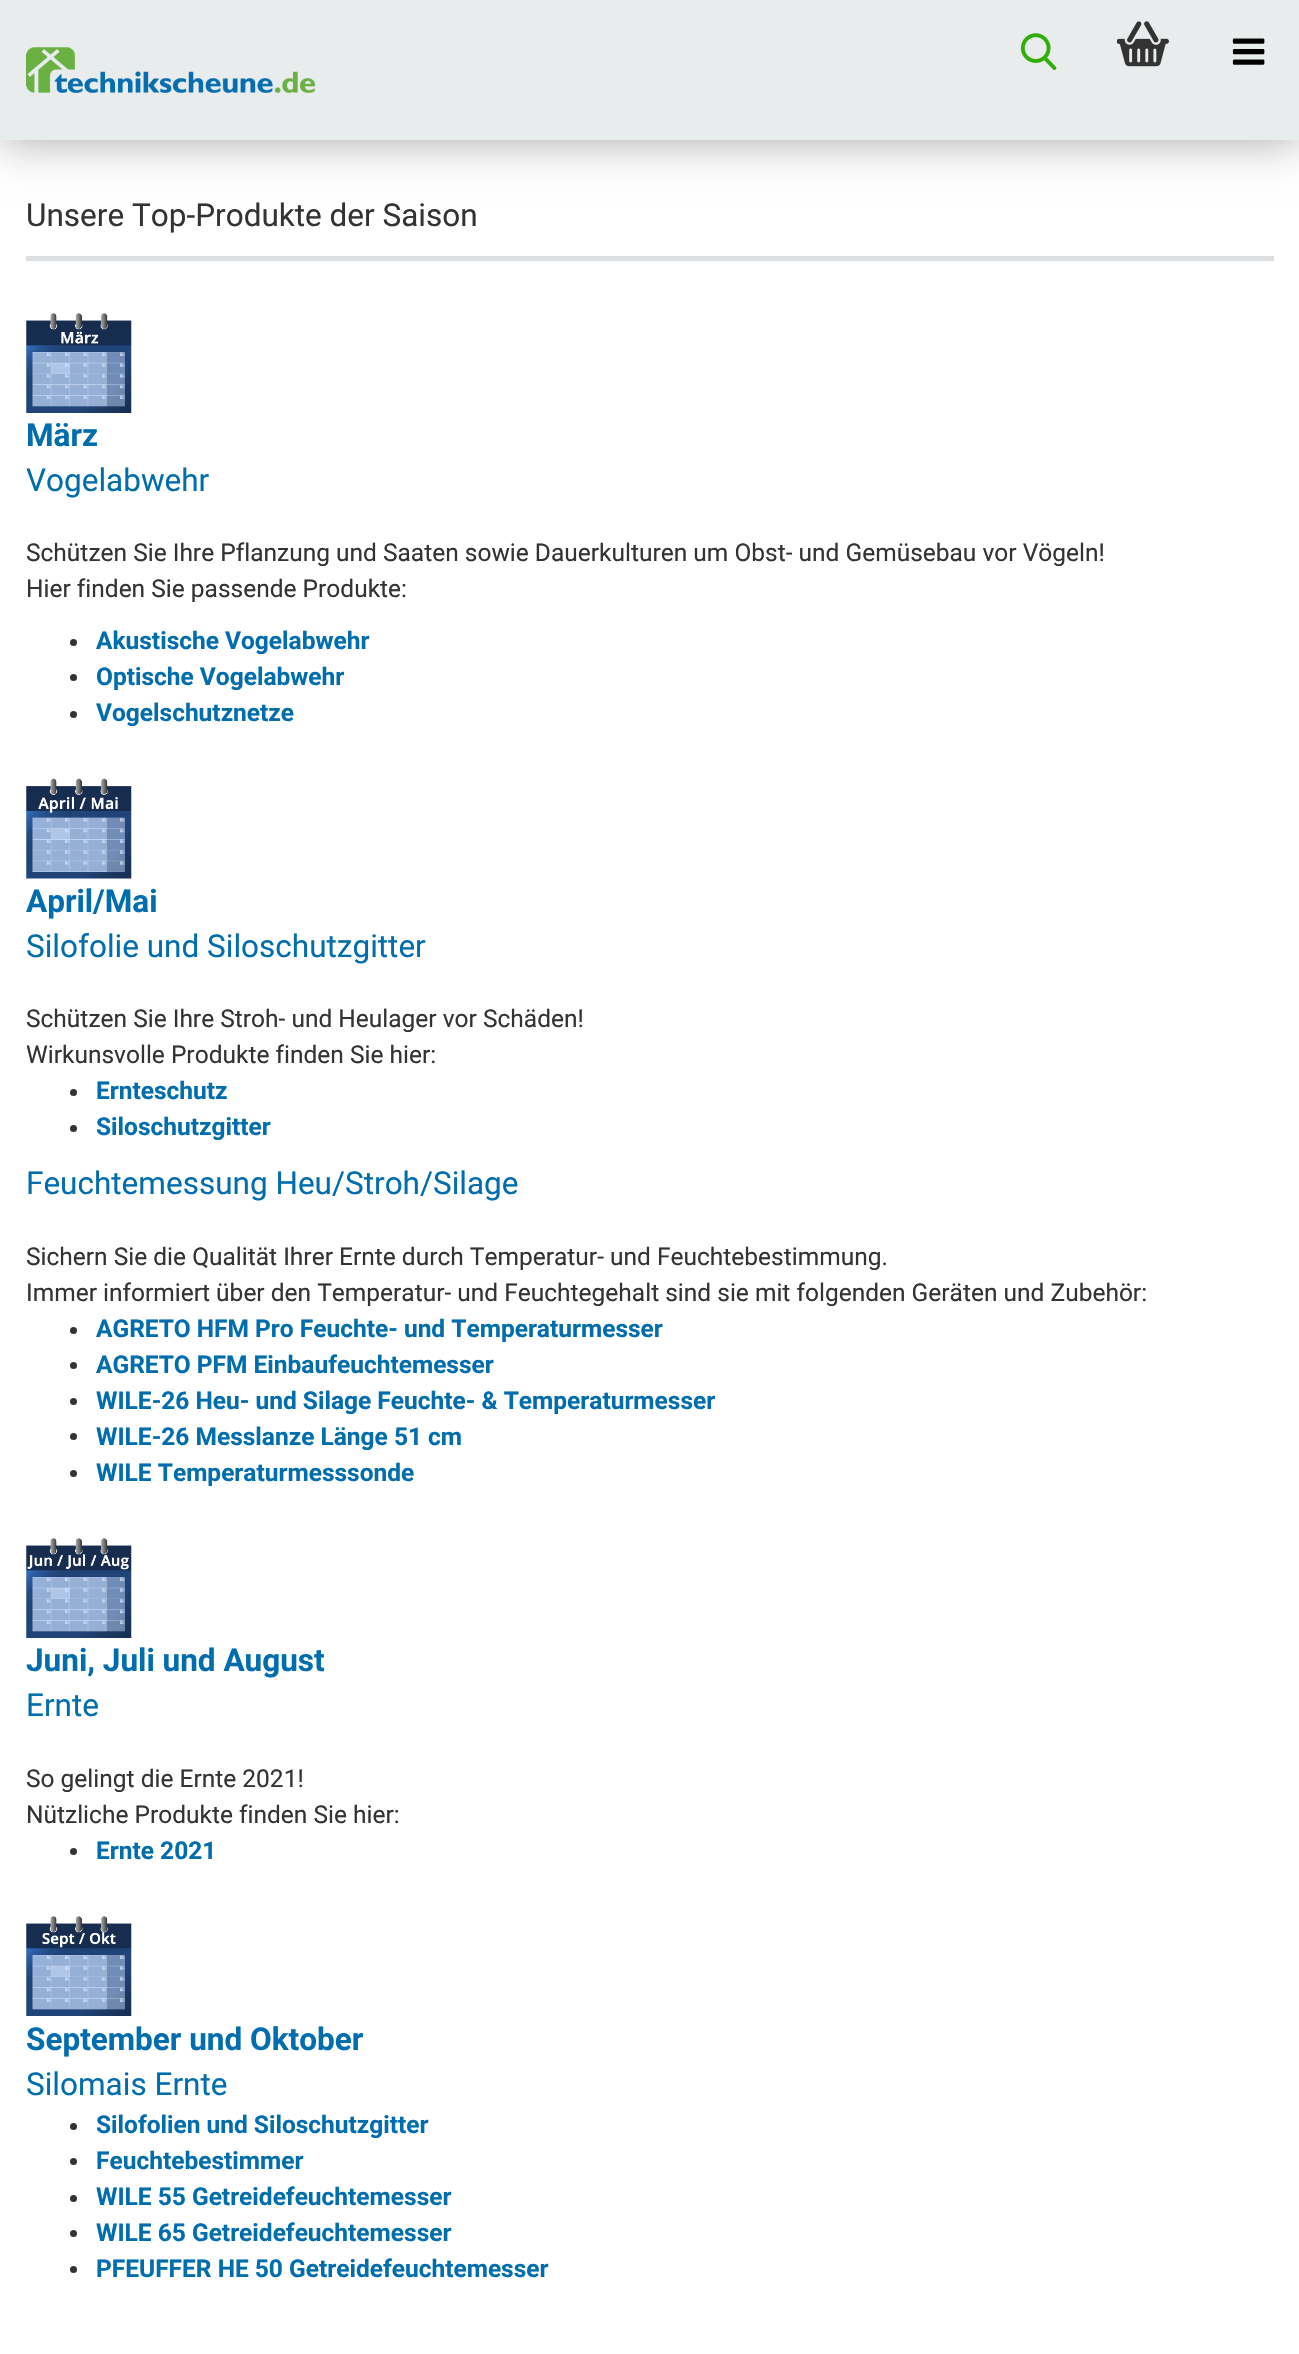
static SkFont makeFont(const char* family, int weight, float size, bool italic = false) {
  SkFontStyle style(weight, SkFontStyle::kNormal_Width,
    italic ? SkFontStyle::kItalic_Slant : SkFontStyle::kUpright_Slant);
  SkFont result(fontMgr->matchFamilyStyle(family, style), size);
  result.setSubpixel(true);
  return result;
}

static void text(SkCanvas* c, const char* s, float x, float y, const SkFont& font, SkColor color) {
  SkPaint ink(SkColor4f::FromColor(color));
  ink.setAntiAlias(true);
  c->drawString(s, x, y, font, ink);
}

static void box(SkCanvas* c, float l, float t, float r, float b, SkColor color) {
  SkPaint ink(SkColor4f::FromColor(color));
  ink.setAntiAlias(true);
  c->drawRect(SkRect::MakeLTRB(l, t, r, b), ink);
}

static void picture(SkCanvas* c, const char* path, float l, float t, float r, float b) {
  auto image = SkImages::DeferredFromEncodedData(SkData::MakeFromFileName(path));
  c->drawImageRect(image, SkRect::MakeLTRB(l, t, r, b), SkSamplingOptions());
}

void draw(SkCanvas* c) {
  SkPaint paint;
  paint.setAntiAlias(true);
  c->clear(0xffffffff);
  paint.setColor(0x59000000);
  paint.setMaskFilter(SkMaskFilter::MakeBlur(kNormal_SkBlurStyle, 22));
  c->drawRect(SkRect::MakeLTRB(0, 0, 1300, 140), paint);
  paint.setMaskFilter(nullptr);
  box(c, 0, 0, 1299, 140, 0xffe9eced);
  picture(c, "img_01.png", 26, 47, 315, 93);
  picture(c, "img_02.png", 1020, 33, 1057, 70);
  picture(c, "img_03.png", 1117, 21, 1169, 67);
  picture(c, "img_04.png", 1232, 38, 1265, 65);
  box(c, 26, 256, 1274, 261, 0xffdcdfe2);
  SkFont face1 = makeFont("Roboto", 400, 31.5f);
  text(c, "Unsere Top-Produkte der Saison", 26, 226, face1, 0xff333333);
  picture(c, "img_05.png", 26, 313, 132, 413);
  SkFont face2 = makeFont("Roboto", 700, 31.5f);
  text(c, "März", 26, 446, face2, 0xff006dae);
  text(c, "Vogelabwehr", 26, 491, face1, 0xff006dae);
  SkFont face3 = makeFont("Roboto", 400, 24.5f);
  text(c, "Schützen Sie Ihre Pflanzung und Saaten sowie Dauerkulturen um Obst- und Gemüsebau vor Vögeln!", 26, 561, face3, 0xff333333);
  text(c, "Hier finden Sie passende Produkte:", 26, 597, face3, 0xff333333);
  paint.setColor(0xff333333);
  c->drawCircle(73.5f, 642.5f, 3.5f, paint);
  SkFont face4 = makeFont("Roboto", 700, 24.5f);
  text(c, "Akustische Vogelabwehr", 96, 649, face4, 0xff006dae);
  c->drawCircle(73.5f, 677.5f, 3.5f, paint);
  text(c, "Optische Vogelabwehr", 96, 685, face4, 0xff006dae);
  c->drawCircle(73.5f, 714.5f, 3.5f, paint);
  text(c, "Vogelschutznetze", 96, 721, face4, 0xff006dae);
  picture(c, "img_06.png", 26, 778, 132, 879);
  text(c, "April/Mai", 26, 912, face2, 0xff006dae);
  text(c, "Silofolie und Siloschutzgitter", 26, 957, face1, 0xff006dae);
  text(c, "Schützen Sie Ihre Stroh- und Heulager vor Schäden!", 26, 1027, face3, 0xff333333);
  text(c, "Wirkunsvolle Produkte finden Sie hier:", 26, 1063, face3, 0xff333333);
  c->drawCircle(73.5f, 1092.5f, 3.5f, paint);
  text(c, "Ernteschutz", 96, 1099, face4, 0xff006dae);
  c->drawCircle(73.5f, 1128.5f, 3.5f, paint);
  text(c, "Siloschutzgitter", 96, 1135, face4, 0xff006dae);
  text(c, "Feuchtemessung Heu/Stroh/Silage", 26, 1194, face1, 0xff006dae);
  text(c, "Sichern Sie die Qualität Ihrer Ernte durch Temperatur- und Feuchtebestimmung.", 26, 1265, face3, 0xff333333);
  text(c, "Immer informiert über den Temperatur- und Feuchtegehalt sind sie mit folgenden Geräten und Zubehör:", 26, 1301, face3, 0xff333333);
  c->drawCircle(73.5f, 1330.5f, 3.5f, paint);
  text(c, "AGRETO HFM Pro Feuchte- und Temperaturmesser", 96, 1337, face4, 0xff006dae);
  c->drawCircle(73.5f, 1365.5f, 3.5f, paint);
  text(c, "AGRETO PFM Einbaufeuchtemesser", 96, 1373, face4, 0xff006dae);
  c->drawCircle(73.5f, 1401.5f, 3.5f, paint);
  text(c, "WILE-26 Heu- und Silage Feuchte- & Temperaturmesser", 96, 1409, face4, 0xff006dae);
  c->drawCircle(73.5f, 1436.5f, 3.5f, paint);
  text(c, "WILE-26 Messlanze Länge 51 cm", 96, 1445, face4, 0xff006dae);
  c->drawCircle(73.5f, 1473.5f, 3.5f, paint);
  text(c, "WILE Temperaturmesssonde", 96, 1481, face4, 0xff006dae);
  picture(c, "img_07.png", 26, 1538, 132, 1638);
  text(c, "Juni, Juli und August", 26, 1671, face2, 0xff006dae);
  text(c, "Ernte", 26, 1716, face1, 0xff006dae);
  text(c, "So gelingt die Ernte 2021!", 26, 1787, face3, 0xff333333);
  text(c, "Nützliche Produkte finden Sie hier:", 26, 1823, face3, 0xff333333);
  c->drawCircle(73.5f, 1851.5f, 3.5f, paint);
  text(c, "Ernte 2021", 96, 1859, face4, 0xff006dae);
  picture(c, "img_08.png", 26, 1916, 132, 2016);
  text(c, "September und Oktober", 26, 2050, face2, 0xff006dae);
  text(c, "Silomais Ernte", 26, 2095, face1, 0xff006dae);
  c->drawCircle(73.5f, 2126.5f, 3.5f, paint);
  text(c, "Silofolien und Siloschutzgitter", 96, 2133, face4, 0xff006dae);
  c->drawCircle(73.5f, 2161.5f, 3.5f, paint);
  text(c, "Feuchtebestimmer", 96, 2169, face4, 0xff006dae);
  c->drawCircle(73.5f, 2198.5f, 3.5f, paint);
  text(c, "WILE 55 Getreidefeuchtemesser", 96, 2205, face4, 0xff006dae);
  c->drawCircle(73.5f, 2233.5f, 3.5f, paint);
  text(c, "WILE 65 Getreidefeuchtemesser", 96, 2241, face4, 0xff006dae);
  c->drawCircle(73.5f, 2269.5f, 3.5f, paint);
  text(c, "PFEUFFER HE 50 Getreidefeuchtemesser", 96, 2277, face4, 0xff006dae);
}
